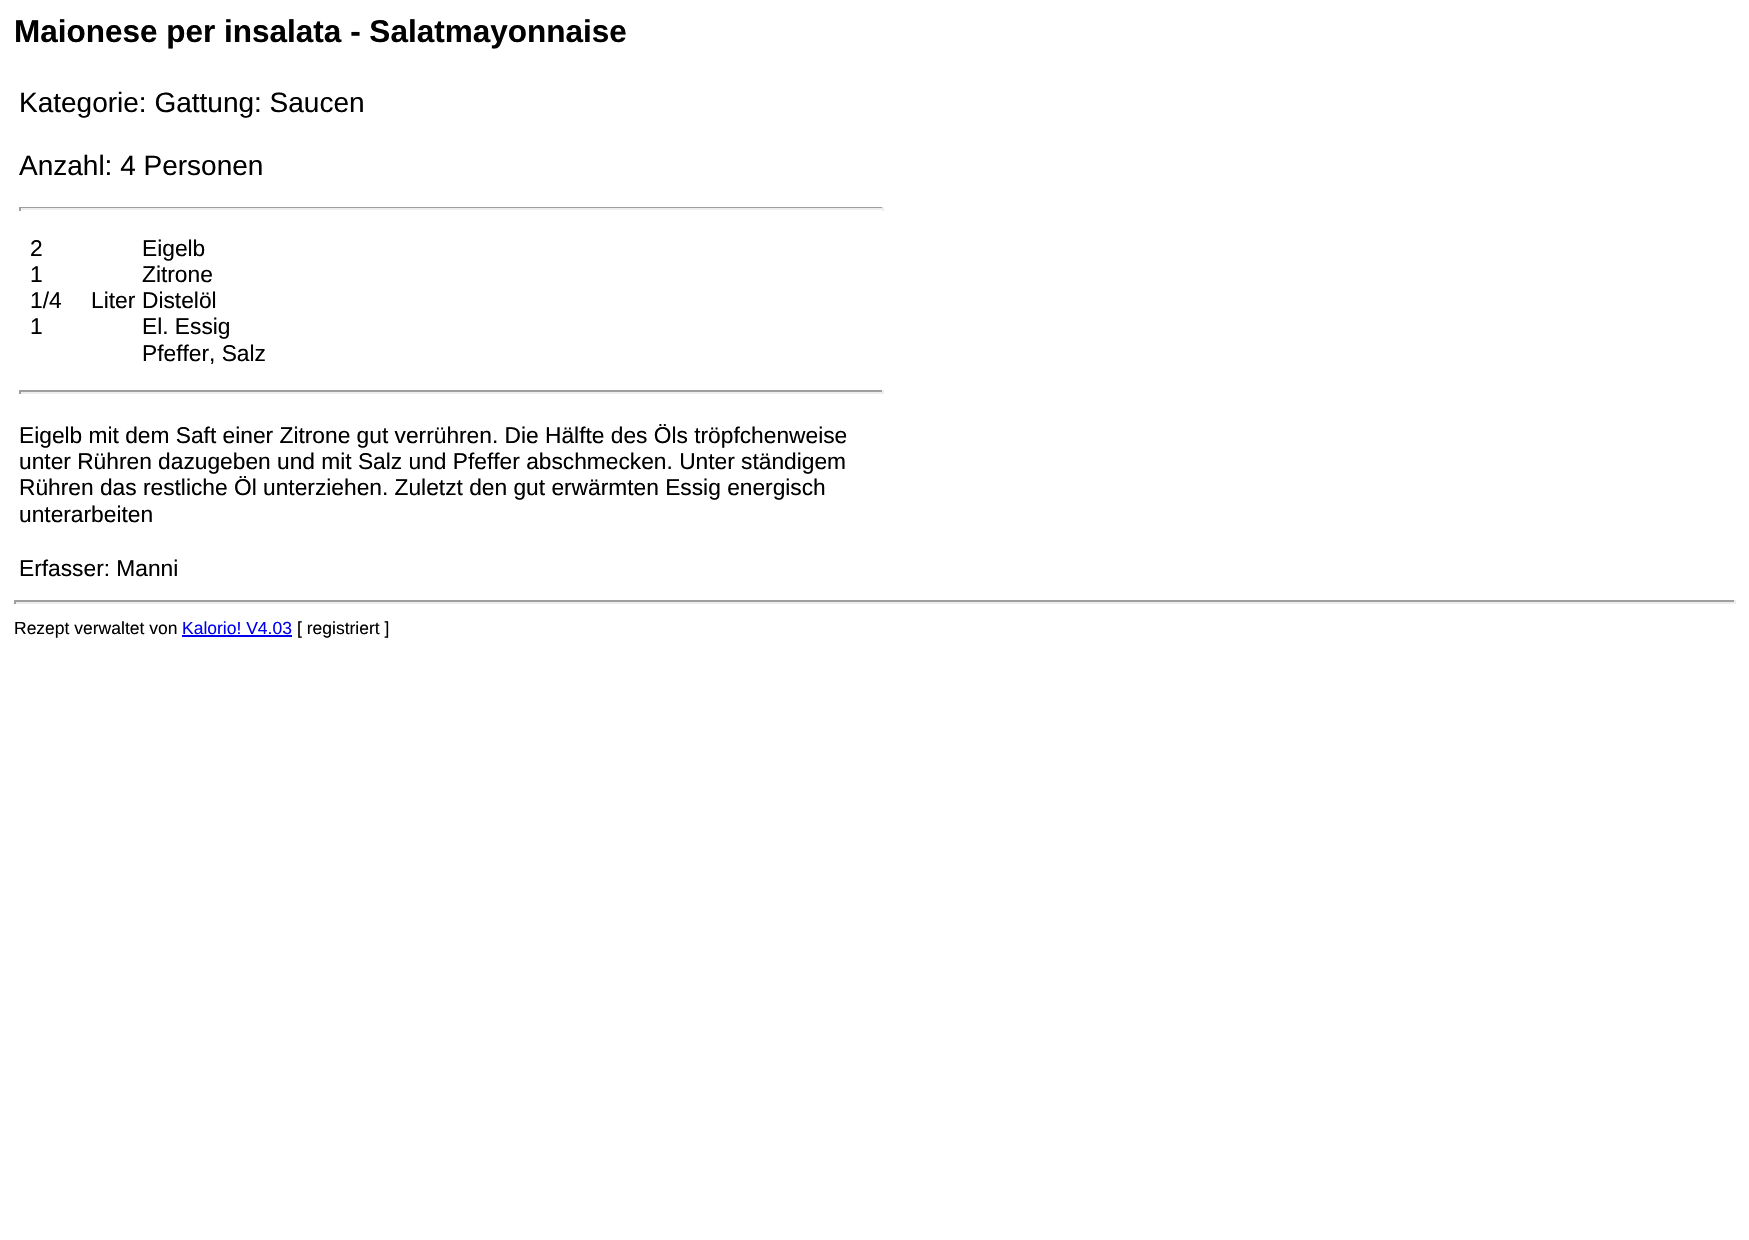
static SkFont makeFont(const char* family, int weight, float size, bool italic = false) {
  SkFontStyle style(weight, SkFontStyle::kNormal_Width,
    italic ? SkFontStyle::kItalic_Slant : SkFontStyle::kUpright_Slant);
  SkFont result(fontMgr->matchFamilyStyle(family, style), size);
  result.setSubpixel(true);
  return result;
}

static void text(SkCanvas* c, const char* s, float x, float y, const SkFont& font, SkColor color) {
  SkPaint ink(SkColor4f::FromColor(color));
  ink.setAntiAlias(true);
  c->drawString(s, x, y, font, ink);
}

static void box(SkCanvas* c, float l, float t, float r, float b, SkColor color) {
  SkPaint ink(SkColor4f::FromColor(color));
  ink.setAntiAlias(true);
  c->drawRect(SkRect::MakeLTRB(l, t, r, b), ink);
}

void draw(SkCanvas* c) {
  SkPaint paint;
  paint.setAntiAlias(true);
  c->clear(0xffffffff);
  SkFont face1 = makeFont("Liberation Sans", 700, 31.5f);
  text(c, "Maionese per insalata - Salatmayonnaise", 14, 42, face1, 0xff000000);
  SkFont face2 = makeFont("Liberation Sans", 400, 28);
  text(c, "Kategorie: Gattung: Saucen", 19, 112, face2, 0xff000000);
  text(c, "Anzahl: 4 Personen", 19, 175, face2, 0xff000000);
  box(c, 19, 207, 884, 208, 0xff9f9f9f);
  box(c, 882, 207, 884, 211, 0xffeeeeee);
  box(c, 19, 208, 884, 210, 0xffeeeeee);
  box(c, 19, 207, 21, 211, 0xff9f9f9f);
  SkFont face3 = makeFont("Liberation Sans", 400, 22.75f);
  text(c, "2", 30, 256, face3, 0xff000000);
  text(c, "1", 30, 282, face3, 0xff000000);
  text(c, "1/4", 30, 308, face3, 0xff000000);
  text(c, "1", 30, 334, face3, 0xff000000);
  text(c, "Liter", 91, 308, face3, 0xff000000);
  text(c, "Eigelb", 142, 256, face3, 0xff000000);
  text(c, "Zitrone", 142, 282, face3, 0xff000000);
  text(c, "Distelöl", 142, 308, face3, 0xff000000);
  text(c, "El. Essig", 142, 334, face3, 0xff000000);
  text(c, "Pfeffer, Salz", 142, 361, face3, 0xff000000);
  box(c, 19, 390, 884, 392, 0xff9f9f9f);
  box(c, 882, 390, 884, 394, 0xffeeeeee);
  box(c, 19, 392, 884, 394, 0xffeeeeee);
  box(c, 19, 390, 21, 394, 0xff9f9f9f);
  text(c, "Eigelb mit dem Saft einer Zitrone gut verrühren. Die Hälfte des Öls tröpfchenweise", 19, 443, face3, 0xff000000);
  text(c, "unter Rühren dazugeben und mit Salz und Pfeffer abschmecken. Unter ständigem", 19, 469, face3, 0xff000000);
  text(c, "Rühren das restliche Öl unterziehen. Zuletzt den gut erwärmten Essig energisch", 19, 495, face3, 0xff000000);
  text(c, "unterarbeiten", 19, 522, face3, 0xff000000);
  text(c, "Erfasser: Manni", 19, 576, face3, 0xff000000);
  box(c, 14, 600, 1736, 602, 0xff9f9f9f);
  box(c, 1734, 600, 1736, 604, 0xffeeeeee);
  box(c, 14, 602, 1736, 604, 0xffeeeeee);
  box(c, 14, 600, 16, 604, 0xff9f9f9f);
  SkFont face4 = makeFont("Liberation Sans", 400, 17.5f);
  text(c, "Rezept verwaltet von", 14, 634, face4, 0xff000000);
  text(c, "Kalorio! V4.03", 182, 634, face4, 0xff0000ee);
  box(c, 182, 635, 292, 637, 0xff0000ee);
  text(c, "[ registriert ]", 297, 634, face4, 0xff000000);
}
